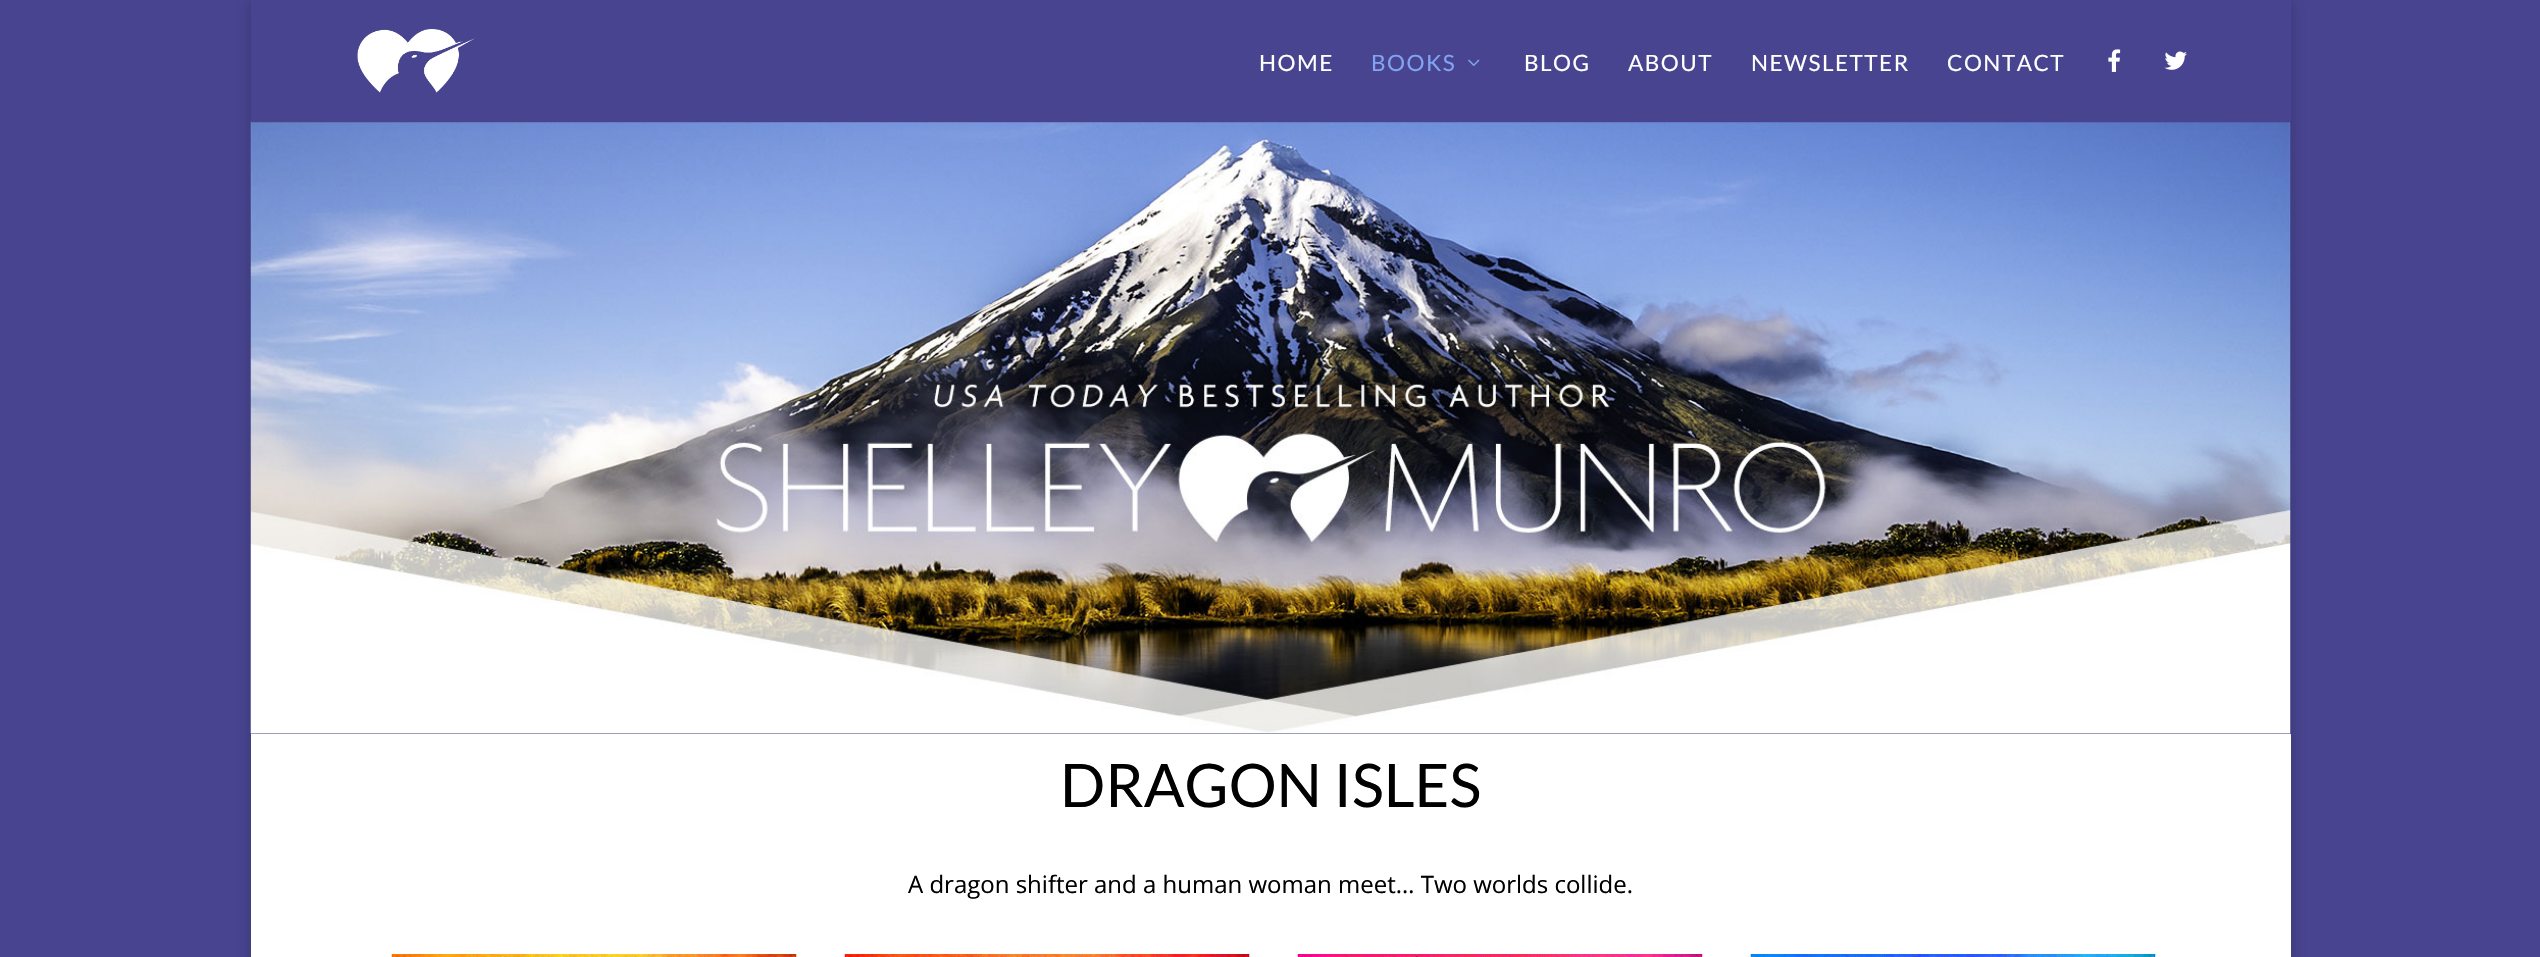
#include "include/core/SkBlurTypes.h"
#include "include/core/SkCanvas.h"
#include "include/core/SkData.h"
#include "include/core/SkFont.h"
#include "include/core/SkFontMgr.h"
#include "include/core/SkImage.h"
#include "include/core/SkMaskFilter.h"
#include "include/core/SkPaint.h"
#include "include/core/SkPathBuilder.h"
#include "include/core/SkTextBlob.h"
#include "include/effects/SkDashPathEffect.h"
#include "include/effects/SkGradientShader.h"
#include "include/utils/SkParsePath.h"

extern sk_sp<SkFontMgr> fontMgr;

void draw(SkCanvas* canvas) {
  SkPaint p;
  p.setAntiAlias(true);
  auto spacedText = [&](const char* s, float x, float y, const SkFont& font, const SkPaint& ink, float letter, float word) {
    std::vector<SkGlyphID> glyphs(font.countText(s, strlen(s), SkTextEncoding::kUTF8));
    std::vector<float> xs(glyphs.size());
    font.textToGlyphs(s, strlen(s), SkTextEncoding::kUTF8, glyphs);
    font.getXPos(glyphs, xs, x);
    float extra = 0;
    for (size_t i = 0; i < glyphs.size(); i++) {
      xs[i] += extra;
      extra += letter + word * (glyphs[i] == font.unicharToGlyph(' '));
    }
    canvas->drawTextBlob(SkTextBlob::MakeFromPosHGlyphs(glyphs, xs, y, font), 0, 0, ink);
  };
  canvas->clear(SkColorSetRGB(72, 68, 144));
  p.setColor(SkColorSetARGB(51, 0, 0, 0));
  p.setMaskFilter(SkMaskFilter::MakeBlur(kNormal_SkBlurStyle, 7.5f));
  canvas->drawRect(SkRect::MakeLTRB(251, 0, 2291, 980), p);
  p.setMaskFilter(nullptr);
  canvas->drawImageRect(SkImages::DeferredFromEncodedData(SkData::MakeFromFileName("images/5.png")), SkRect::MakeLTRB(250, 121, 2291, 734), SkSamplingOptions());
  p.setColor(SkColorSetARGB(26, 0, 0, 0));
  canvas->drawPath(SkPathBuilder().moveTo(251, 122).lineTo(251, 123).lineTo(2291, 123).lineTo(2291, 2).lineTo(2290, 2).lineTo(2290, 122).close().detach(), p);
  p.setColor(SkColorSetRGB(72, 68, 144));
  canvas->drawRect(SkRect::MakeLTRB(251, 0, 2291, 122), p);
  canvas->drawImageRect(SkImages::DeferredFromEncodedData(SkData::MakeFromFileName("images/1.png")), SkRect::MakeLTRB(357, 29, 475, 93), SkSamplingOptions());
  canvas->drawImageRect(SkImages::DeferredFromEncodedData(SkData::MakeFromFileName("images/2.png")), SkRect::MakeLTRB(1468, 59, 1480, 66), SkSamplingOptions());
  canvas->drawImageRect(SkImages::DeferredFromEncodedData(SkData::MakeFromFileName("images/3.png")), SkRect::MakeLTRB(2108, 49, 2121, 72), SkSamplingOptions());
  canvas->drawImageRect(SkImages::DeferredFromEncodedData(SkData::MakeFromFileName("images/4.png")), SkRect::MakeLTRB(2164, 51, 2187, 70), SkSamplingOptions());
  p.setColor(SK_ColorWHITE);
  canvas->drawRect(SkRect::MakeLTRB(251, 734, 2291, 957), p);
  canvas->drawImageRect(SkImages::DeferredFromEncodedData(SkData::MakeFromFileName("images/6.png")), SkRect::MakeLTRB(391, 954, 797, 957), SkSamplingOptions());
  canvas->drawImageRect(SkImages::DeferredFromEncodedData(SkData::MakeFromFileName("images/7.png")), SkRect::MakeLTRB(844, 954, 1250, 957), SkSamplingOptions());
  canvas->drawImageRect(SkImages::DeferredFromEncodedData(SkData::MakeFromFileName("images/8.png")), SkRect::MakeLTRB(1297, 954, 1703, 957), SkSamplingOptions());
  canvas->drawImageRect(SkImages::DeferredFromEncodedData(SkData::MakeFromFileName("images/9.png")), SkRect::MakeLTRB(1750, 954, 2156, 957), SkSamplingOptions());
  SkFont font1(fontMgr->matchFamilyStyle("Lato", SkFontStyle::Normal()), 22.5f);
  font1.setSubpixel(true);
  spacedText("HOME", 1259, 71, font1, p, 1.5f, 0);
  p.setColor(SkColorSetRGB(130, 163, 241));
  spacedText("BOOKS", 1371, 71, font1, p, 1.5f, 0);
  p.setColor(SK_ColorWHITE);
  spacedText("BLOG", 1524, 71, font1, p, 1.5f, 0);
  spacedText("ABOUT", 1628, 71, font1, p, 1.5f, 0);
  spacedText("NEWSLETTER", 1751, 71, font1, p, 1.5f, 0);
  spacedText("CONTACT", 1947, 71, font1, p, 1.5f, 0);
  SkFont font2(fontMgr->matchFamilyStyle("Lato", SkFontStyle::Normal()), 60);
  font2.setSubpixel(true);
  p.setColor(SK_ColorBLACK);
  canvas->drawString("DRAGON ISLES", 1060, 807, font2, p);
  SkFont font3(fontMgr->matchFamilyStyle("Open Sans", SkFontStyle::Normal()), 24);
  font3.setSubpixel(true);
  canvas->drawString("A dragon shifter and a human woman meet… Two worlds collide.", 908, 893, font3, p);
}
